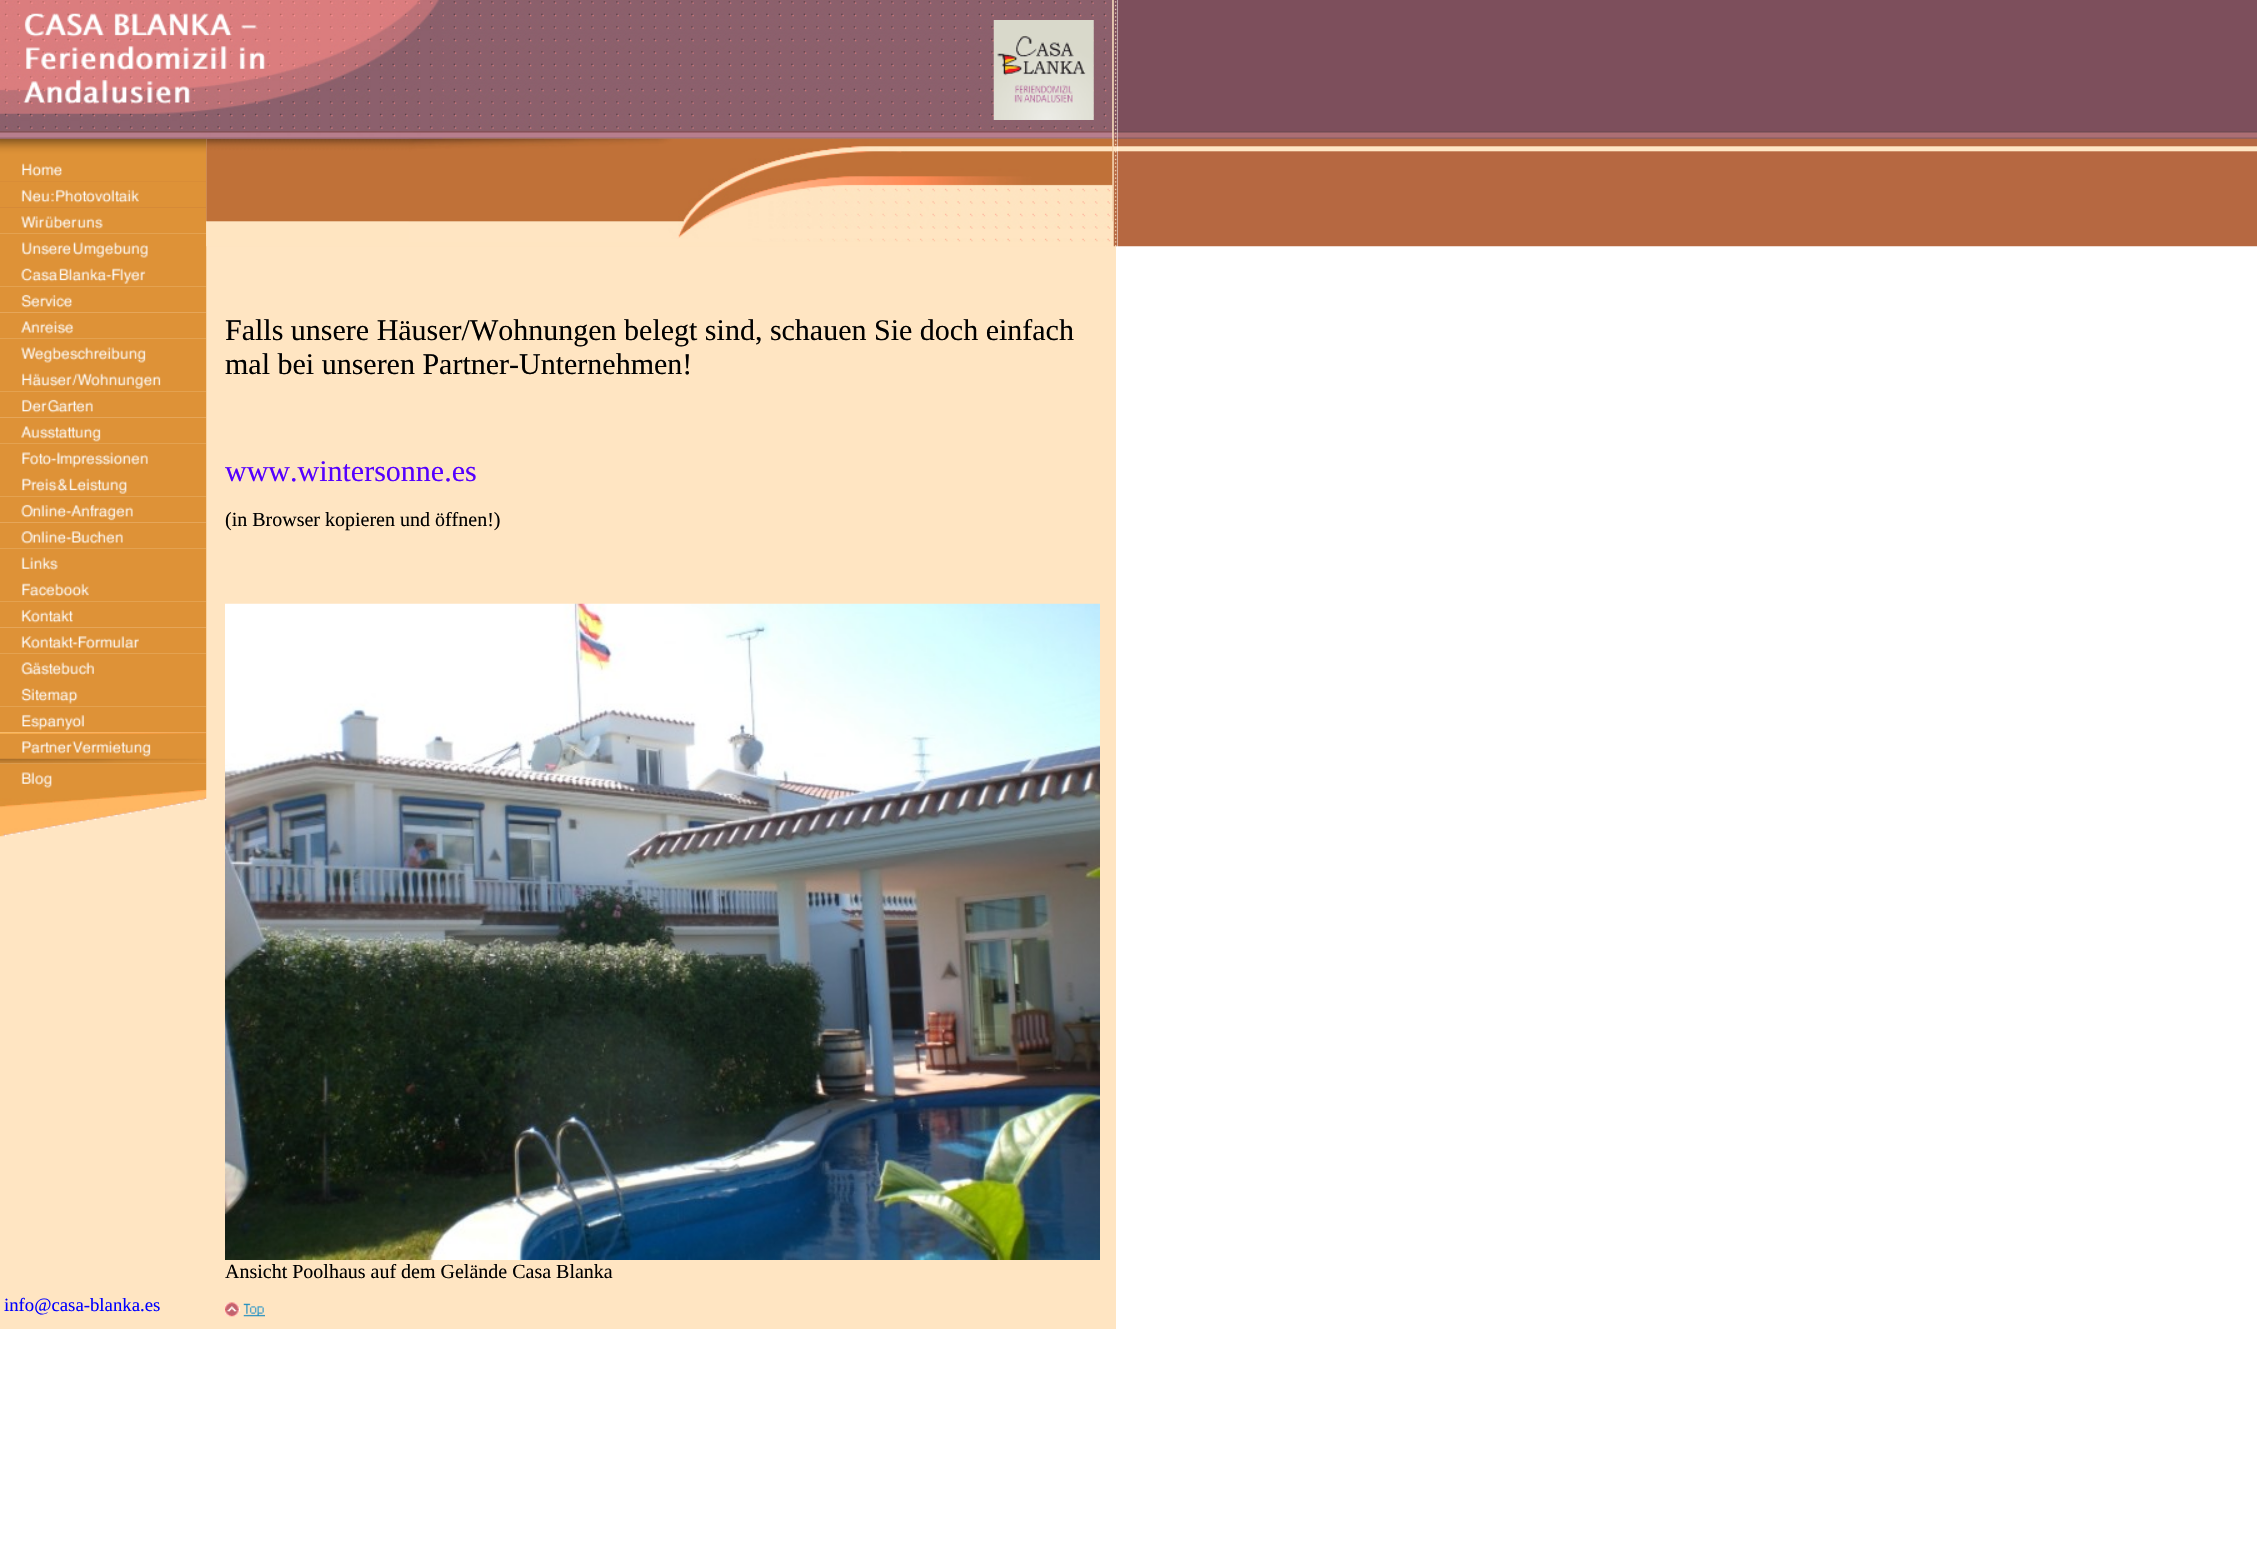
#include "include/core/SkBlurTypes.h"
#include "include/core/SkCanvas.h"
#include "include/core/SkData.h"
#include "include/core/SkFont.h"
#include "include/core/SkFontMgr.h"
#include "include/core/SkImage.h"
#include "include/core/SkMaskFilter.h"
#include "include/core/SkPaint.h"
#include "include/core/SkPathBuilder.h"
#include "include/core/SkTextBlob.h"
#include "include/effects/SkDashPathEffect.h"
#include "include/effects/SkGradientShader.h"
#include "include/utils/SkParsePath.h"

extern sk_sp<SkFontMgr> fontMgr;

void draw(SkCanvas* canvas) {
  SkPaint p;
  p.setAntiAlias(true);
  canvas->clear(SK_ColorWHITE);
  canvas->drawImageRect(SkImages::DeferredFromEncodedData(SkData::MakeFromFileName("images/1.png")), SkRect::MakeLTRB(1118, 0, 2257, 247), SkSamplingOptions());
  canvas->drawImageRect(SkImages::DeferredFromEncodedData(SkData::MakeFromFileName("images/2.png")), SkRect::MakeLTRB(1116, 0, 1118, 247), SkSamplingOptions());
  p.setColor(SkColorSetRGB(255, 229, 194));
  canvas->drawRect(SkRect::MakeLTRB(0, 0, 1116, 1329), p);
  canvas->drawImageRect(SkImages::DeferredFromEncodedData(SkData::MakeFromFileName("images/3.png")), SkRect::MakeLTRB(0, 138, 207, 139), SkSamplingOptions());
  canvas->drawImageRect(SkImages::DeferredFromEncodedData(SkData::MakeFromFileName("images/5.png")), SkRect::MakeLTRB(206, 0, 1113, 139), SkSamplingOptions());
  canvas->drawImageRect(SkImages::DeferredFromEncodedData(SkData::MakeFromFileName("images/8.png")), SkRect::MakeLTRB(0, 138, 207, 208), SkSamplingOptions());
  canvas->drawRect(SkRect::MakeLTRB(206, 139, 207, 208), p);
  canvas->drawImageRect(SkImages::DeferredFromEncodedData(SkData::MakeFromFileName("images/9.png")), SkRect::MakeLTRB(0, 138, 207, 155), SkSamplingOptions());
  canvas->drawImageRect(SkImages::DeferredFromEncodedData(SkData::MakeFromFileName("images/10.png")), SkRect::MakeLTRB(0, 155, 207, 182), SkSamplingOptions());
  canvas->drawImageRect(SkImages::DeferredFromEncodedData(SkData::MakeFromFileName("images/11.png")), SkRect::MakeLTRB(0, 181, 207, 208), SkSamplingOptions());
  canvas->drawImageRect(SkImages::DeferredFromEncodedData(SkData::MakeFromFileName("images/12.png")), SkRect::MakeLTRB(0, 207, 207, 234), SkSamplingOptions());
  canvas->drawImageRect(SkImages::DeferredFromEncodedData(SkData::MakeFromFileName("images/13.png")), SkRect::MakeLTRB(0, 233, 207, 260), SkSamplingOptions());
  canvas->drawImageRect(SkImages::DeferredFromEncodedData(SkData::MakeFromFileName("images/35.png")), SkRect::MakeLTRB(206, 138, 1113, 247), SkSamplingOptions());
  canvas->drawImageRect(SkImages::DeferredFromEncodedData(SkData::MakeFromFileName("images/36.png")), SkRect::MakeLTRB(408, 138, 1113, 242), SkSamplingOptions());
  canvas->drawImageRect(SkImages::DeferredFromEncodedData(SkData::MakeFromFileName("images/4.png")), SkRect::MakeLTRB(0, 0, 443, 139), SkSamplingOptions());
  canvas->drawImageRect(SkImages::DeferredFromEncodedData(SkData::MakeFromFileName("images/6.png")), SkRect::MakeLTRB(993, 20, 1094, 120), SkSamplingOptions());
  canvas->drawImageRect(SkImages::DeferredFromEncodedData(SkData::MakeFromFileName("images/7.png")), SkRect::MakeLTRB(1112, 0, 1117, 247), SkSamplingOptions());
  canvas->drawImageRect(SkImages::DeferredFromEncodedData(SkData::MakeFromFileName("images/14.png")), SkRect::MakeLTRB(0, 260, 207, 287), SkSamplingOptions());
  canvas->drawImageRect(SkImages::DeferredFromEncodedData(SkData::MakeFromFileName("images/15.png")), SkRect::MakeLTRB(0, 286, 207, 313), SkSamplingOptions());
  canvas->drawImageRect(SkImages::DeferredFromEncodedData(SkData::MakeFromFileName("images/16.png")), SkRect::MakeLTRB(0, 312, 207, 339), SkSamplingOptions());
  canvas->drawImageRect(SkImages::DeferredFromEncodedData(SkData::MakeFromFileName("images/17.png")), SkRect::MakeLTRB(0, 338, 207, 365), SkSamplingOptions());
  canvas->drawImageRect(SkImages::DeferredFromEncodedData(SkData::MakeFromFileName("images/18.png")), SkRect::MakeLTRB(0, 365, 207, 392), SkSamplingOptions());
  canvas->drawImageRect(SkImages::DeferredFromEncodedData(SkData::MakeFromFileName("images/19.png")), SkRect::MakeLTRB(0, 391, 207, 418), SkSamplingOptions());
  canvas->drawImageRect(SkImages::DeferredFromEncodedData(SkData::MakeFromFileName("images/20.png")), SkRect::MakeLTRB(0, 417, 207, 444), SkSamplingOptions());
  canvas->drawImageRect(SkImages::DeferredFromEncodedData(SkData::MakeFromFileName("images/21.png")), SkRect::MakeLTRB(0, 443, 207, 470), SkSamplingOptions());
  canvas->drawImageRect(SkImages::DeferredFromEncodedData(SkData::MakeFromFileName("images/22.png")), SkRect::MakeLTRB(0, 470, 207, 497), SkSamplingOptions());
  canvas->drawImageRect(SkImages::DeferredFromEncodedData(SkData::MakeFromFileName("images/23.png")), SkRect::MakeLTRB(0, 496, 207, 523), SkSamplingOptions());
  canvas->drawImageRect(SkImages::DeferredFromEncodedData(SkData::MakeFromFileName("images/24.png")), SkRect::MakeLTRB(0, 522, 207, 549), SkSamplingOptions());
  canvas->drawImageRect(SkImages::DeferredFromEncodedData(SkData::MakeFromFileName("images/25.png")), SkRect::MakeLTRB(0, 548, 207, 575), SkSamplingOptions());
  canvas->drawImageRect(SkImages::DeferredFromEncodedData(SkData::MakeFromFileName("images/26.png")), SkRect::MakeLTRB(0, 575, 207, 602), SkSamplingOptions());
  canvas->drawImageRect(SkImages::DeferredFromEncodedData(SkData::MakeFromFileName("images/27.png")), SkRect::MakeLTRB(0, 601, 207, 628), SkSamplingOptions());
  canvas->drawImageRect(SkImages::DeferredFromEncodedData(SkData::MakeFromFileName("images/28.png")), SkRect::MakeLTRB(0, 627, 207, 654), SkSamplingOptions());
  canvas->drawImageRect(SkImages::DeferredFromEncodedData(SkData::MakeFromFileName("images/29.png")), SkRect::MakeLTRB(0, 653, 207, 680), SkSamplingOptions());
  canvas->drawImageRect(SkImages::DeferredFromEncodedData(SkData::MakeFromFileName("images/30.png")), SkRect::MakeLTRB(0, 680, 207, 707), SkSamplingOptions());
  canvas->drawImageRect(SkImages::DeferredFromEncodedData(SkData::MakeFromFileName("images/31.png")), SkRect::MakeLTRB(0, 706, 207, 733), SkSamplingOptions());
  canvas->drawImageRect(SkImages::DeferredFromEncodedData(SkData::MakeFromFileName("images/32.png")), SkRect::MakeLTRB(0, 732, 207, 764), SkSamplingOptions());
  canvas->drawImageRect(SkImages::DeferredFromEncodedData(SkData::MakeFromFileName("images/33.png")), SkRect::MakeLTRB(0, 763, 207, 790), SkSamplingOptions());
  canvas->drawImageRect(SkImages::DeferredFromEncodedData(SkData::MakeFromFileName("images/34.png")), SkRect::MakeLTRB(0, 790, 207, 837), SkSamplingOptions());
  canvas->drawImageRect(SkImages::DeferredFromEncodedData(SkData::MakeFromFileName("images/37.png")), SkRect::MakeLTRB(225, 603, 1100, 1260), SkSamplingOptions());
  canvas->drawImageRect(SkImages::DeferredFromEncodedData(SkData::MakeFromFileName("images/38.png")), SkRect::MakeLTRB(225, 1302, 265, 1317), SkSamplingOptions());
  SkFont font1(fontMgr->matchFamilyStyle("Liberation Serif", SkFontStyle::Normal()), 30);
  font1.setSubpixel(true);
  p.setColor(SK_ColorBLACK);
  canvas->drawString("Falls unsere Häuser/Wohnungen belegt sind, schauen Sie doch einfach", 225, 340, font1, p);
  canvas->drawString("mal bei unseren Partner-Unternehmen!", 225, 374, font1, p);
  p.setColor(SkColorSetRGB(85, 0, 255));
  canvas->drawString("www.wintersonne.es", 225, 481, font1, p);
  SkFont font2(fontMgr->matchFamilyStyle("Liberation Serif", SkFontStyle::Normal()), 20);
  font2.setSubpixel(true);
  p.setColor(SK_ColorBLACK);
  canvas->drawString("(in Browser kopieren und öffnen!)", 225, 526, font2, p);
  canvas->drawString("Ansicht Poolhaus auf dem Gelände Casa Blanka", 225, 1278, font2, p);
  SkFont font3(fontMgr->matchFamilyStyle("Liberation Serif", SkFontStyle::Normal()), 18.75f);
  font3.setSubpixel(true);
  p.setColor(SkColorSetRGB(0, 0, 255));
  canvas->drawString("info@casa-blanka.es", 4, 1311, font3, p);
}
